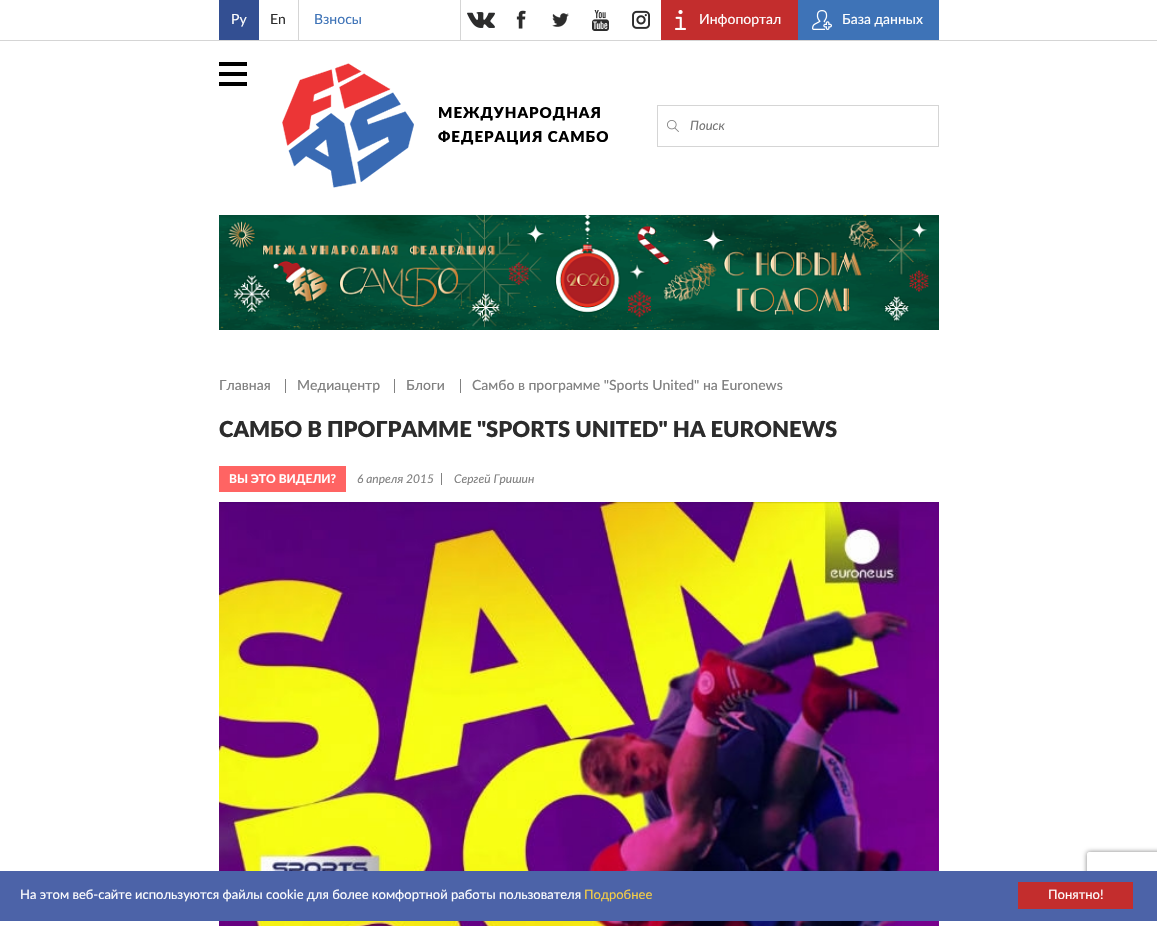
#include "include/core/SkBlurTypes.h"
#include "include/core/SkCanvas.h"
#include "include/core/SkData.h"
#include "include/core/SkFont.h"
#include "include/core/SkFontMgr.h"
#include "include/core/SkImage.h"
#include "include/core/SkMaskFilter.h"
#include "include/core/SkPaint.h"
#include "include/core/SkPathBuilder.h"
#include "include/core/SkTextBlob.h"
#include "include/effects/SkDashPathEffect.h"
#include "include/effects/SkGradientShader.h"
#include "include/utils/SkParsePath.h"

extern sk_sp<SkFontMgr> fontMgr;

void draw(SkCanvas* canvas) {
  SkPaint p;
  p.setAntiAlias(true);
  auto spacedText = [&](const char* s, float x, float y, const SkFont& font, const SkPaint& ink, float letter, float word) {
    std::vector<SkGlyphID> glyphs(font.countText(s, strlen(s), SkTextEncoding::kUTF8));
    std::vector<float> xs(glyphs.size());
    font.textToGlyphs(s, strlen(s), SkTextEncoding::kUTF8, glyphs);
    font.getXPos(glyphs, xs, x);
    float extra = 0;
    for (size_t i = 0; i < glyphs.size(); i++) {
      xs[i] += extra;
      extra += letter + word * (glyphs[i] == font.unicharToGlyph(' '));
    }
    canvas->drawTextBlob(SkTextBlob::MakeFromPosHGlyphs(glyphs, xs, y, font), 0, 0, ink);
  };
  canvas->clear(SK_ColorWHITE);
  p.setColor(SkColorSetRGB(213, 213, 213));
  canvas->drawRect(SkRect::MakeLTRB(0, 40, 1157, 41), p);
  p.setColor(SkColorSetRGB(51, 79, 146));
  canvas->drawRect(SkRect::MakeLTRB(219, 0, 259, 40), p);
  p.setColor(SkColorSetRGB(213, 213, 213));
  canvas->drawRect(SkRect::MakeLTRB(298, 0, 299, 40), p);
  canvas->drawRect(SkRect::MakeLTRB(460, 0, 461, 40), p);
  canvas->drawImageRect(SkImages::DeferredFromEncodedData(SkData::MakeFromFileName("images/1.png")), SkRect::MakeLTRB(467, 12, 495, 28), SkSamplingOptions());
  canvas->drawImageRect(SkImages::DeferredFromEncodedData(SkData::MakeFromFileName("images/2.png")), SkRect::MakeLTRB(516, 10, 526, 29), SkSamplingOptions());
  canvas->drawImageRect(SkImages::DeferredFromEncodedData(SkData::MakeFromFileName("images/3.png")), SkRect::MakeLTRB(552, 13, 569, 27), SkSamplingOptions());
  canvas->drawImageRect(SkImages::DeferredFromEncodedData(SkData::MakeFromFileName("images/4.png")), SkRect::MakeLTRB(592, 10, 609, 31), SkSamplingOptions());
  canvas->drawImageRect(SkImages::DeferredFromEncodedData(SkData::MakeFromFileName("images/5.png")), SkRect::MakeLTRB(632, 10, 650, 29), SkSamplingOptions());
  p.setColor(SkColorSetRGB(195, 45, 45));
  canvas->drawRect(SkRect::MakeLTRB(661, 0, 798, 40), p);
  canvas->drawImageRect(SkImages::DeferredFromEncodedData(SkData::MakeFromFileName("images/6.png")), SkRect::MakeLTRB(675, 10, 686, 30), SkSamplingOptions());
  p.setColor(SkColorSetRGB(62, 115, 183));
  canvas->drawRect(SkRect::MakeLTRB(798, 0, 939, 40), p);
  canvas->drawImageRect(SkImages::DeferredFromEncodedData(SkData::MakeFromFileName("images/7.png")), SkRect::MakeLTRB(812, 10, 832, 30), SkSamplingOptions());
  p.setStyle(SkPaint::kStroke_Style);
  p.setStrokeWidth(1);
  p.setColor(SkColorSetRGB(213, 213, 213));
  canvas->drawRect(SkRect::MakeLTRB(657.5f, 105.5f, 938.5f, 146.5f), p);
  canvas->drawImageRect(SkImages::DeferredFromEncodedData(SkData::MakeFromFileName("images/8.png")), SkRect::MakeLTRB(667, 120, 679, 132), SkSamplingOptions());
  p.setStyle(SkPaint::kFill_Style);
  p.setColor(SK_ColorBLACK);
  canvas->drawRect(SkRect::MakeLTRB(219, 62, 247, 66), p);
  canvas->drawRect(SkRect::MakeLTRB(219, 82, 247, 86), p);
  canvas->drawRect(SkRect::MakeLTRB(219, 72, 247, 76), p);
  canvas->drawImageRect(SkImages::DeferredFromEncodedData(SkData::MakeFromFileName("images/9.png")), SkRect::MakeLTRB(282, 63, 414, 188), SkSamplingOptions());
  canvas->drawImageRect(SkImages::DeferredFromEncodedData(SkData::MakeFromFileName("images/10.png")), SkRect::MakeLTRB(219, 215, 939, 330), SkSamplingOptions());
  p.setColor(SkColorSetRGB(129, 129, 129));
  canvas->drawRect(SkRect::MakeLTRB(285, 379, 286, 393), p);
  canvas->drawRect(SkRect::MakeLTRB(394, 379, 395, 393), p);
  canvas->drawRect(SkRect::MakeLTRB(460, 379, 461, 393), p);
  p.setColor(SkColorSetRGB(255, 100, 99));
  canvas->drawRect(SkRect::MakeLTRB(219, 466, 346, 492), p);
  p.setColor(SkColorSetRGB(129, 129, 129));
  canvas->drawRect(SkRect::MakeLTRB(441, 473, 442, 485), p);
  canvas->drawImageRect(SkImages::DeferredFromEncodedData(SkData::MakeFromFileName("images/11.png")), SkRect::MakeLTRB(219, 502, 939, 926), SkSamplingOptions());
  canvas->save();
  canvas->clipPath(SkPathBuilder(SkPathFillType::kEvenOdd).moveTo(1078, 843).lineTo(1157, 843).lineTo(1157, 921).lineTo(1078, 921).close().moveTo(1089, 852).lineTo(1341, 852).cubicTo(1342, 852, 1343, 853, 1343, 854).lineTo(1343, 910).cubicTo(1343, 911, 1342, 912, 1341, 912).lineTo(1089, 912).cubicTo(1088, 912, 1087, 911, 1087, 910).lineTo(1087, 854).cubicTo(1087, 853, 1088, 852, 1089, 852).close().detach(), true);
  p.setColor(SkColorSetRGB(128, 128, 128));
  p.setMaskFilter(SkMaskFilter::MakeBlur(kNormal_SkBlurStyle, 2.5f));
  canvas->drawRoundRect(SkRect::MakeLTRB(1087, 852, 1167, 912), 2, 2, p);
  p.setMaskFilter(nullptr);
  canvas->restore();
  p.setColor(SkColorSetRGB(76, 99, 168));
  canvas->drawRect(SkRect::MakeLTRB(0, 871, 1157, 921), p);
  p.setColor(SkColorSetRGB(195, 45, 45));
  canvas->drawRect(SkRect::MakeLTRB(1018, 882, 1133, 909), p);
  SkFont font1(fontMgr->matchFamilyStyle("Lato", SkFontStyle::Normal()), 14);
  font1.setSubpixel(true);
  p.setColor(SK_ColorWHITE);
  canvas->drawString("Ру", 231, 24, font1, p);
  p.setColor(SkColorSetRGB(44, 44, 44));
  canvas->drawString("En", 270, 24, font1, p);
  p.setColor(SkColorSetRGB(62, 115, 183));
  canvas->drawString("Взносы", 314, 24, font1, p);
  p.setColor(SK_ColorWHITE);
  canvas->drawString("Инфопортал", 699, 24, font1, p);
  canvas->drawString("База данных", 842, 24, font1, p);
  SkFont font2(fontMgr->matchFamilyStyle("Lato", SkFontStyle::Italic()), 13);
  font2.setSubpixel(true);
  p.setColor(SkColorSetRGB(117, 117, 117));
  canvas->drawString("Поиск", 690, 130, font2, p);
  SkFont font3(fontMgr->matchFamilyStyle("Lato", SkFontStyle(900, SkFontStyle::kNormal_Width, SkFontStyle::kUpright_Slant)), 15);
  font3.setSubpixel(true);
  p.setColor(SK_ColorBLACK);
  spacedText("МЕЖДУНАРОДНАЯ", 438, 118, font3, p, 1, 0);
  spacedText("ФЕДЕРАЦИЯ САМБО", 438, 142, font3, p, 1, 0);
  SkFont font4(fontMgr->matchFamilyStyle("Lato", SkFontStyle(500, SkFontStyle::kNormal_Width, SkFontStyle::kUpright_Slant)), 14);
  font4.setSubpixel(true);
  p.setColor(SkColorSetRGB(129, 129, 129));
  canvas->drawString("Главная", 219, 390, font4, p);
  canvas->drawString("Медиацентр", 297, 390, font4, p);
  canvas->drawString("Блоги", 406, 390, font4, p);
  canvas->drawString("Самбо в программе \"Sports United\" на Euronews", 472, 390, font4, p);
  SkFont font5(fontMgr->matchFamilyStyle("Lato", SkFontStyle(900, SkFontStyle::kNormal_Width, SkFontStyle::kUpright_Slant)), 22);
  font5.setSubpixel(true);
  p.setColor(SkColorSetRGB(44, 44, 44));
  canvas->drawString("САМБО В ПРОГРАММЕ \"SPORTS UNITED\" НА EURONEWS", 219, 437, font5, p);
  SkFont font6(fontMgr->matchFamilyStyle("Lato", SkFontStyle::Bold()), 12);
  font6.setSubpixel(true);
  p.setColor(SK_ColorWHITE);
  canvas->drawString("ВЫ ЭТО ВИДЕЛИ?", 229, 483, font6, p);
  SkFont font7(fontMgr->matchFamilyStyle("Lato", SkFontStyle::Italic()), 12);
  font7.setSubpixel(true);
  p.setColor(SkColorSetRGB(129, 129, 129));
  canvas->drawString("6 апреля 2015", 357, 483, font7, p);
  canvas->drawString("Сергей Гришин", 454, 483, font7, p);
  SkFont font8(fontMgr->matchFamilyStyle("Lato", SkFontStyle::Normal()), 13);
  font8.setSubpixel(true);
  p.setColor(SK_ColorWHITE);
  canvas->drawString("На этом веб-сайте используются файлы cookie для более комфортной работы пользователя", 20, 899, font8, p);
  p.setColor(SkColorSetRGB(244, 205, 71));
  canvas->drawString("Подробнее", 584, 899, font8, p);
  p.setColor(SK_ColorWHITE);
  canvas->drawString("Понятно!", 1048, 899, font8, p);
}
